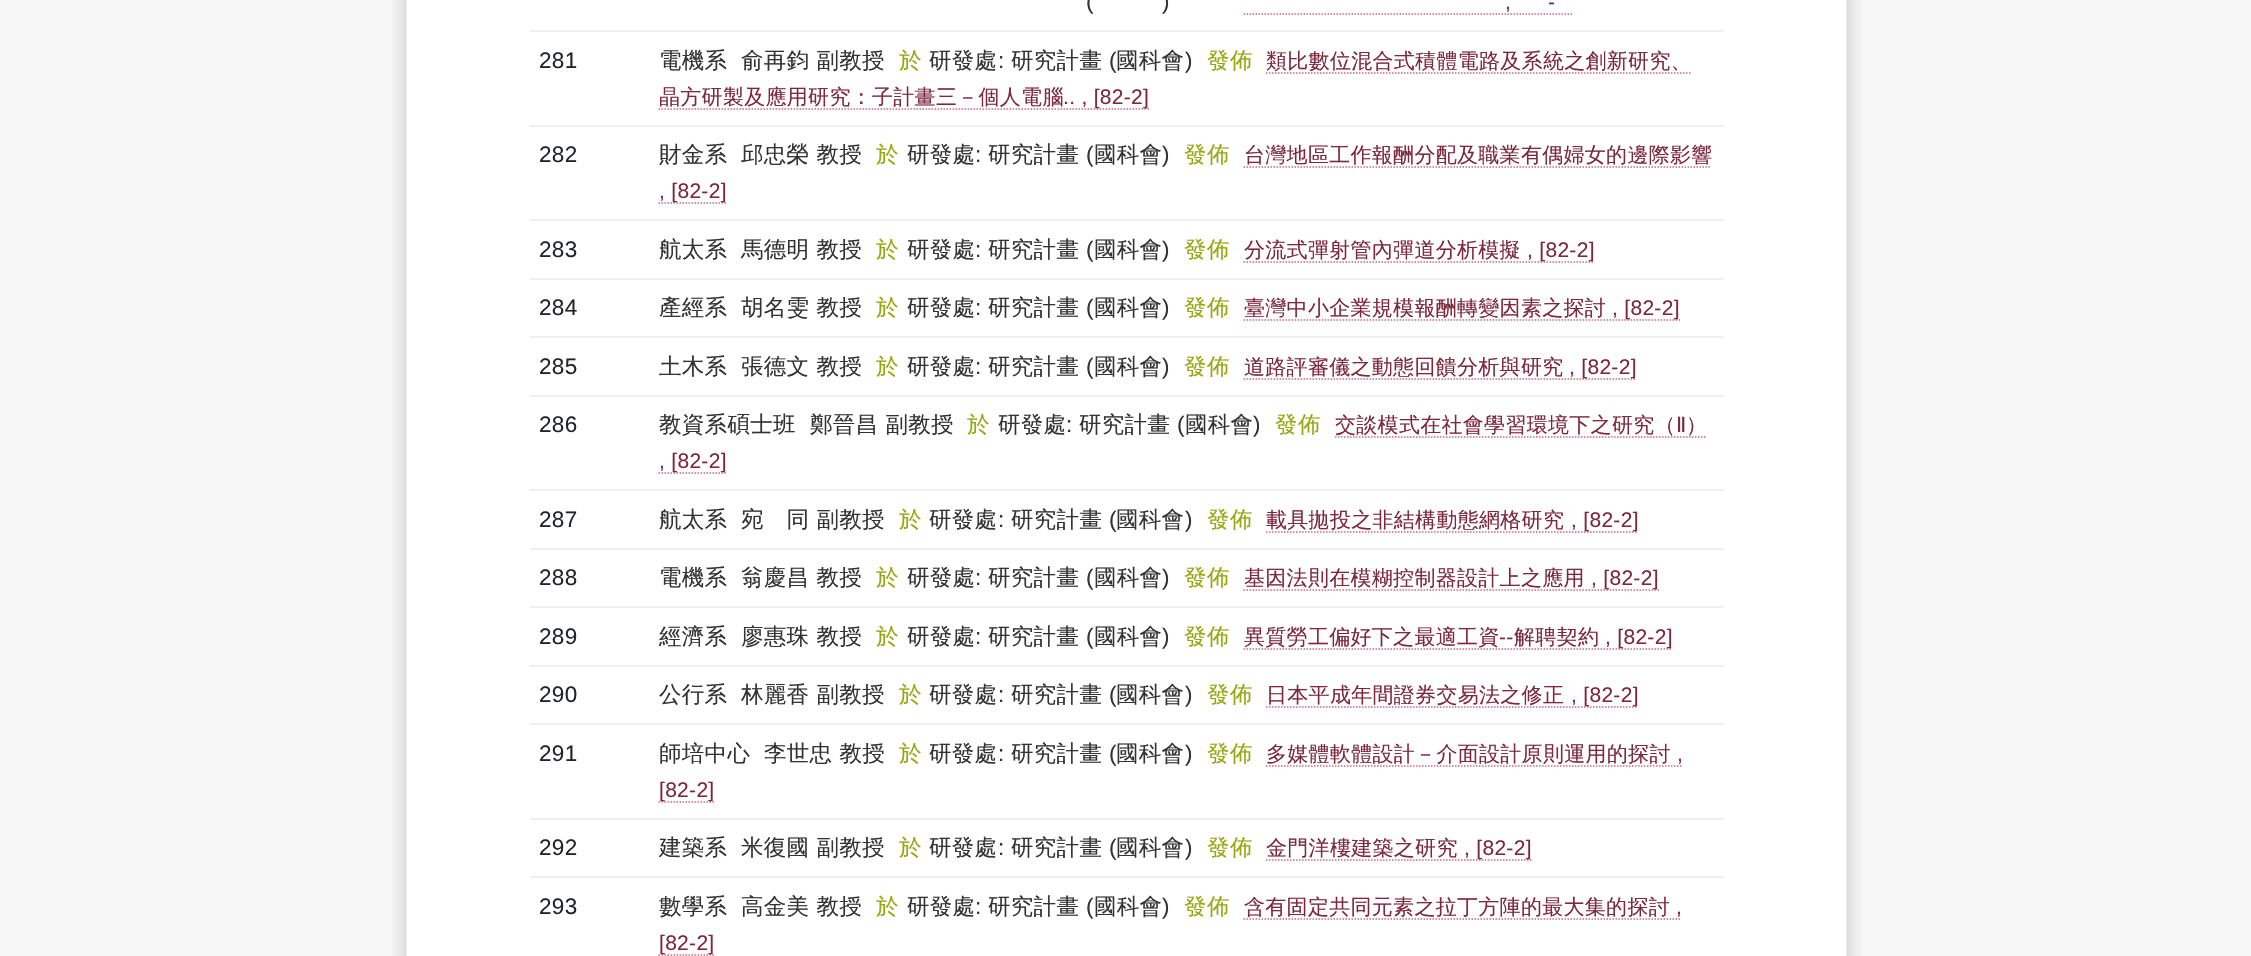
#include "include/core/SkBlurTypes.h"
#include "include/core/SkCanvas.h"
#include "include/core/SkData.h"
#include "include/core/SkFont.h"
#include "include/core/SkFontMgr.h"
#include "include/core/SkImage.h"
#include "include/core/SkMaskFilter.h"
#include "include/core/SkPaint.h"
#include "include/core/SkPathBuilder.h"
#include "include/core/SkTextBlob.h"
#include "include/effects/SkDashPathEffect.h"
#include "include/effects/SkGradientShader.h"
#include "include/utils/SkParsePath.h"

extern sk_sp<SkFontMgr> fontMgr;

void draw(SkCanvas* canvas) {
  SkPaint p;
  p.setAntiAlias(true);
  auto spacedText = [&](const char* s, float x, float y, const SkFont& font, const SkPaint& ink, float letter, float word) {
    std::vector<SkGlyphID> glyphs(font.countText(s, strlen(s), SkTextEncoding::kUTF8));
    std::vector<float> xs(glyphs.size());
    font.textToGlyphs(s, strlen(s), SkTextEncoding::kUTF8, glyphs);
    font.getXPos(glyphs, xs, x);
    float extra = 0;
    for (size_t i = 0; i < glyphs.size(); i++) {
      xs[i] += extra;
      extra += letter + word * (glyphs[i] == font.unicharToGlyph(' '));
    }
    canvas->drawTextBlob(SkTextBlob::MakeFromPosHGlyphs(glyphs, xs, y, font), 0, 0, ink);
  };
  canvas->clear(SkColorSetRGB(246, 246, 246));
  canvas->drawImageRect(SkImages::DeferredFromEncodedData(SkData::MakeFromFileName("images/1.png")), SkRect::MakeLTRB(392, 0, 1861, 956), SkSamplingOptions());
  p.setColor(SkColorSetRGB(239, 239, 239));
  canvas->drawRect(SkRect::MakeLTRB(530, 30, 1724, 32), p);
  p.setStyle(SkPaint::kStroke_Style);
  p.setStrokeWidth(1.5f);
  p.setColor(SkColorSetRGB(199, 108, 130));
  p.setPathEffect(SkDashPathEffect::Make({{1.5f, 1.5f}}, 0));
  canvas->drawPath(SkPathBuilder().moveTo(1243.5f, 14).lineTo(1573.5f, 14).detach(), p);
  p.setPathEffect(nullptr);
  p.setStyle(SkPaint::kFill_Style);
  p.setColor(SkColorSetRGB(239, 239, 239));
  canvas->drawRect(SkRect::MakeLTRB(530, 125, 1724, 127), p);
  p.setStyle(SkPaint::kStroke_Style);
  p.setColor(SkColorSetRGB(199, 108, 130));
  p.setPathEffect(SkDashPathEffect::Make({{1.5f, 1.5f}}, 0));
  canvas->drawPath(SkPathBuilder().moveTo(1266, 73).lineTo(1692, 73).detach(), p);
  p.setPathEffect(nullptr);
  p.setPathEffect(SkDashPathEffect::Make({{1.5f, 1.5f}}, 0));
  canvas->drawPath(SkPathBuilder().moveTo(658.5f, 109).lineTo(1149, 109).detach(), p);
  p.setPathEffect(nullptr);
  p.setStyle(SkPaint::kFill_Style);
  p.setColor(SkColorSetRGB(239, 239, 239));
  canvas->drawRect(SkRect::MakeLTRB(530, 219, 1724, 221), p);
  p.setStyle(SkPaint::kStroke_Style);
  p.setColor(SkColorSetRGB(199, 108, 130));
  p.setPathEffect(SkDashPathEffect::Make({{1.5f, 1.5f}}, 0));
  canvas->drawPath(SkPathBuilder().moveTo(1243.5f, 167).lineTo(1711.5f, 167).detach(), p);
  p.setPathEffect(nullptr);
  p.setPathEffect(SkDashPathEffect::Make({{1.5f, 1.5f}}, 0));
  canvas->drawPath(SkPathBuilder().moveTo(658.5f, 203).lineTo(726, 203).detach(), p);
  p.setPathEffect(nullptr);
  p.setStyle(SkPaint::kFill_Style);
  p.setColor(SkColorSetRGB(239, 239, 239));
  canvas->drawRect(SkRect::MakeLTRB(530, 278, 1724, 280), p);
  p.setStyle(SkPaint::kStroke_Style);
  p.setColor(SkColorSetRGB(199, 108, 130));
  p.setPathEffect(SkDashPathEffect::Make({{1.5f, 1.5f}}, 0));
  canvas->drawPath(SkPathBuilder().moveTo(1243.5f, 262).lineTo(1594.5f, 262).detach(), p);
  p.setPathEffect(nullptr);
  p.setStyle(SkPaint::kFill_Style);
  p.setColor(SkColorSetRGB(239, 239, 239));
  canvas->drawRect(SkRect::MakeLTRB(530, 336, 1724, 338), p);
  p.setStyle(SkPaint::kStroke_Style);
  p.setColor(SkColorSetRGB(199, 108, 130));
  p.setPathEffect(SkDashPathEffect::Make({{1.5f, 1.5f}}, 0));
  canvas->drawPath(SkPathBuilder().moveTo(1243.5f, 320).lineTo(1680, 320).detach(), p);
  p.setPathEffect(nullptr);
  p.setStyle(SkPaint::kFill_Style);
  p.setColor(SkColorSetRGB(239, 239, 239));
  canvas->drawRect(SkRect::MakeLTRB(530, 395, 1724, 397), p);
  p.setStyle(SkPaint::kStroke_Style);
  p.setColor(SkColorSetRGB(199, 108, 130));
  p.setPathEffect(SkDashPathEffect::Make({{1.5f, 1.5f}}, 0));
  canvas->drawPath(SkPathBuilder().moveTo(1243.5f, 379).lineTo(1636.5f, 379).detach(), p);
  p.setPathEffect(nullptr);
  p.setStyle(SkPaint::kFill_Style);
  p.setColor(SkColorSetRGB(239, 239, 239));
  canvas->drawRect(SkRect::MakeLTRB(530, 489, 1724, 491), p);
  p.setStyle(SkPaint::kStroke_Style);
  p.setColor(SkColorSetRGB(199, 108, 130));
  p.setPathEffect(SkDashPathEffect::Make({{1.5f, 1.5f}}, 0));
  canvas->drawPath(SkPathBuilder().moveTo(1335, 437).lineTo(1707, 437).detach(), p);
  p.setPathEffect(nullptr);
  p.setPathEffect(SkDashPathEffect::Make({{1.5f, 1.5f}}, 0));
  canvas->drawPath(SkPathBuilder().moveTo(658.5f, 473).lineTo(726, 473).detach(), p);
  p.setPathEffect(nullptr);
  p.setStyle(SkPaint::kFill_Style);
  p.setColor(SkColorSetRGB(239, 239, 239));
  canvas->drawRect(SkRect::MakeLTRB(530, 548, 1724, 550), p);
  p.setStyle(SkPaint::kStroke_Style);
  p.setColor(SkColorSetRGB(199, 108, 130));
  p.setPathEffect(SkDashPathEffect::Make({{1.5f, 1.5f}}, 0));
  canvas->drawPath(SkPathBuilder().moveTo(1266, 532).lineTo(1638, 532).detach(), p);
  p.setPathEffect(nullptr);
  p.setStyle(SkPaint::kFill_Style);
  p.setColor(SkColorSetRGB(239, 239, 239));
  canvas->drawRect(SkRect::MakeLTRB(530, 606, 1724, 608), p);
  p.setStyle(SkPaint::kStroke_Style);
  p.setColor(SkColorSetRGB(199, 108, 130));
  p.setPathEffect(SkDashPathEffect::Make({{1.5f, 1.5f}}, 0));
  canvas->drawPath(SkPathBuilder().moveTo(1243.5f, 590).lineTo(1659, 590).detach(), p);
  p.setPathEffect(nullptr);
  p.setStyle(SkPaint::kFill_Style);
  p.setColor(SkColorSetRGB(239, 239, 239));
  canvas->drawRect(SkRect::MakeLTRB(530, 665, 1724, 667), p);
  p.setStyle(SkPaint::kStroke_Style);
  p.setColor(SkColorSetRGB(199, 108, 130));
  p.setPathEffect(SkDashPathEffect::Make({{1.5f, 1.5f}}, 0));
  canvas->drawPath(SkPathBuilder().moveTo(1243.5f, 649).lineTo(1672.5f, 649).detach(), p);
  p.setPathEffect(nullptr);
  p.setStyle(SkPaint::kFill_Style);
  p.setColor(SkColorSetRGB(239, 239, 239));
  canvas->drawRect(SkRect::MakeLTRB(530, 723, 1724, 725), p);
  p.setStyle(SkPaint::kStroke_Style);
  p.setColor(SkColorSetRGB(199, 108, 130));
  p.setPathEffect(SkDashPathEffect::Make({{1.5f, 1.5f}}, 0));
  canvas->drawPath(SkPathBuilder().moveTo(1266, 707).lineTo(1638, 707).detach(), p);
  p.setPathEffect(nullptr);
  p.setStyle(SkPaint::kFill_Style);
  p.setColor(SkColorSetRGB(239, 239, 239));
  canvas->drawRect(SkRect::MakeLTRB(530, 818, 1724, 820), p);
  p.setStyle(SkPaint::kStroke_Style);
  p.setColor(SkColorSetRGB(199, 108, 130));
  p.setPathEffect(SkDashPathEffect::Make({{1.5f, 1.5f}}, 0));
  canvas->drawPath(SkPathBuilder().moveTo(1266, 766).lineTo(1683, 766).detach(), p);
  p.setPathEffect(nullptr);
  p.setPathEffect(SkDashPathEffect::Make({{1.5f, 1.5f}}, 0));
  canvas->drawPath(SkPathBuilder().moveTo(658.5f, 802).lineTo(714, 802).detach(), p);
  p.setPathEffect(nullptr);
  p.setStyle(SkPaint::kFill_Style);
  p.setColor(SkColorSetRGB(239, 239, 239));
  canvas->drawRect(SkRect::MakeLTRB(530, 876, 1724, 878), p);
  p.setStyle(SkPaint::kStroke_Style);
  p.setColor(SkColorSetRGB(199, 108, 130));
  p.setPathEffect(SkDashPathEffect::Make({{1.5f, 1.5f}}, 0));
  canvas->drawPath(SkPathBuilder().moveTo(1266, 860).lineTo(1531.5f, 860).detach(), p);
  p.setPathEffect(nullptr);
  p.setPathEffect(SkDashPathEffect::Make({{1.5f, 1.5f}}, 0));
  canvas->drawPath(SkPathBuilder().moveTo(1243.5f, 919).lineTo(1681.5f, 919).detach(), p);
  p.setPathEffect(nullptr);
  p.setPathEffect(SkDashPathEffect::Make({{1.5f, 1.5f}}, 0));
  canvas->drawPath(SkPathBuilder().moveTo(658.5f, 955).lineTo(714, 955).detach(), p);
  p.setPathEffect(nullptr);
  SkFont font1(fontMgr->matchFamilyStyle("Liberation Sans", SkFontStyle::Normal()), 22.5f);
  font1.setSubpixel(true);
  p.setStyle(SkPaint::kFill_Style);
  p.setColor(SkColorSetRGB(51, 51, 51));
  spacedText("(", 1086, 9, font1, p, 0.3f, 0);
  spacedText(")", 1162, 9, font1, p, 0.3f, 0);
  SkFont font2(fontMgr->matchFamilyStyle("Liberation Sans", SkFontStyle::Normal()), 21);
  font2.setSubpixel(true);
  p.setColor(SkColorSetRGB(125, 40, 61));
  spacedText("-", 1548, 9, font2, p, 0.3f, 0);
  spacedText(",", 1505, 9, font2, p, 0.3f, 0);
  p.setColor(SkColorSetRGB(33, 37, 41));
  spacedText("281", 539, 68, font1, p, 0.3f, 0);
  SkFont font3(fontMgr->matchFamilyStyle("WenQuanYi Zen Hei", SkFontStyle(500, SkFontStyle::kNormal_Width, SkFontStyle::kUpright_Slant)), 22.5f);
  font3.setSubpixel(true);
  p.setColor(SkColorSetRGB(51, 51, 51));
  spacedText("電機系", 659, 68, font3, p, 0.3f, 0);
  spacedText("俞再鈞 副教授", 741, 68, font3, p, 0.3f, 0);
  p.setColor(SkColorSetRGB(148, 169, 15));
  spacedText("於", 899, 68, font3, p, 0.3f, 0);
  p.setColor(SkColorSetRGB(51, 51, 51));
  spacedText("研發處", 929, 68, font3, p, 0.3f, 0);
  spacedText(":", 998, 68, font1, p, 0.3f, 0);
  spacedText("研究計畫", 1011, 68, font3, p, 0.3f, 0);
  spacedText("(", 1109, 68, font1, p, 0.3f, 0);
  spacedText("國科會", 1116, 68, font3, p, 0.3f, 0);
  spacedText(")", 1185, 68, font1, p, 0.3f, 0);
  p.setColor(SkColorSetRGB(148, 169, 15));
  spacedText("發佈", 1207, 68, font3, p, 0.3f, 0);
  SkFont font4(fontMgr->matchFamilyStyle("WenQuanYi Zen Hei", SkFontStyle(500, SkFontStyle::kNormal_Width, SkFontStyle::kUpright_Slant)), 21);
  font4.setSubpixel(true);
  p.setColor(SkColorSetRGB(125, 40, 61));
  spacedText("類比數位混合式積體電路及系統之創新研究、", 1266, 68, font4, p, 0.3f, 0);
  spacedText("晶方研製及應用研究：子計畫三－個人電腦", 659, 104, font4, p, 0.3f, 0);
  spacedText(".. , [82-2]", 1063, 104, font2, p, 0.3f, 0);
  p.setColor(SkColorSetRGB(33, 37, 41));
  spacedText("282", 539, 162, font1, p, 0.3f, 0);
  p.setColor(SkColorSetRGB(51, 51, 51));
  spacedText("財金系", 659, 162, font3, p, 0.3f, 0);
  spacedText("邱忠榮 教授", 741, 162, font3, p, 0.3f, 0);
  p.setColor(SkColorSetRGB(148, 169, 15));
  spacedText("於", 876, 162, font3, p, 0.3f, 0);
  p.setColor(SkColorSetRGB(51, 51, 51));
  spacedText("研發處", 907, 162, font3, p, 0.3f, 0);
  spacedText(":", 975, 162, font1, p, 0.3f, 0);
  spacedText("研究計畫", 988, 162, font3, p, 0.3f, 0);
  spacedText("(", 1086, 162, font1, p, 0.3f, 0);
  spacedText("國科會", 1094, 162, font3, p, 0.3f, 0);
  spacedText(")", 1162, 162, font1, p, 0.3f, 0);
  p.setColor(SkColorSetRGB(148, 169, 15));
  spacedText("發佈", 1184, 162, font3, p, 0.3f, 0);
  p.setColor(SkColorSetRGB(125, 40, 61));
  spacedText("台灣地區工作報酬分配及職業有偶婦女的邊際影響", 1244, 162, font4, p, 0.3f, 0);
  spacedText(", [82-2]", 659, 198, font2, p, 0.3f, 0);
  p.setColor(SkColorSetRGB(33, 37, 41));
  spacedText("283", 539, 257, font1, p, 0.3f, 0);
  p.setColor(SkColorSetRGB(51, 51, 51));
  spacedText("航太系", 659, 257, font3, p, 0.3f, 0);
  spacedText("馬德明 教授", 741, 257, font3, p, 0.3f, 0);
  p.setColor(SkColorSetRGB(148, 169, 15));
  spacedText("於", 876, 257, font3, p, 0.3f, 0);
  p.setColor(SkColorSetRGB(51, 51, 51));
  spacedText("研發處", 907, 257, font3, p, 0.3f, 0);
  spacedText(":", 975, 257, font1, p, 0.3f, 0);
  spacedText("研究計畫", 988, 257, font3, p, 0.3f, 0);
  spacedText("(", 1086, 257, font1, p, 0.3f, 0);
  spacedText("國科會", 1094, 257, font3, p, 0.3f, 0);
  spacedText(")", 1162, 257, font1, p, 0.3f, 0);
  p.setColor(SkColorSetRGB(148, 169, 15));
  spacedText("發佈", 1184, 257, font3, p, 0.3f, 0);
  p.setColor(SkColorSetRGB(125, 40, 61));
  spacedText("分流式彈射管內彈道分析模擬", 1244, 257, font4, p, 0.3f, 0);
  spacedText(", [82-2]", 1527, 257, font2, p, 0.3f, 0);
  p.setColor(SkColorSetRGB(33, 37, 41));
  spacedText("284", 539, 315, font1, p, 0.3f, 0);
  p.setColor(SkColorSetRGB(51, 51, 51));
  spacedText("產經系", 659, 315, font3, p, 0.3f, 0);
  spacedText("胡名雯 教授", 741, 315, font3, p, 0.3f, 0);
  p.setColor(SkColorSetRGB(148, 169, 15));
  spacedText("於", 876, 315, font3, p, 0.3f, 0);
  p.setColor(SkColorSetRGB(51, 51, 51));
  spacedText("研發處", 907, 315, font3, p, 0.3f, 0);
  spacedText(":", 975, 315, font1, p, 0.3f, 0);
  spacedText("研究計畫", 988, 315, font3, p, 0.3f, 0);
  spacedText("(", 1086, 315, font1, p, 0.3f, 0);
  spacedText("國科會", 1094, 315, font3, p, 0.3f, 0);
  spacedText(")", 1162, 315, font1, p, 0.3f, 0);
  p.setColor(SkColorSetRGB(148, 169, 15));
  spacedText("發佈", 1184, 315, font3, p, 0.3f, 0);
  p.setColor(SkColorSetRGB(125, 40, 61));
  spacedText("臺灣中小企業規模報酬轉變因素之探討", 1244, 315, font4, p, 0.3f, 0);
  spacedText(", [82-2]", 1612, 315, font2, p, 0.3f, 0);
  p.setColor(SkColorSetRGB(33, 37, 41));
  spacedText("285", 539, 374, font1, p, 0.3f, 0);
  p.setColor(SkColorSetRGB(51, 51, 51));
  spacedText("土木系", 659, 374, font3, p, 0.3f, 0);
  spacedText("張德文 教授", 741, 374, font3, p, 0.3f, 0);
  p.setColor(SkColorSetRGB(148, 169, 15));
  spacedText("於", 876, 374, font3, p, 0.3f, 0);
  p.setColor(SkColorSetRGB(51, 51, 51));
  spacedText("研發處", 907, 374, font3, p, 0.3f, 0);
  spacedText(":", 975, 374, font1, p, 0.3f, 0);
  spacedText("研究計畫", 988, 374, font3, p, 0.3f, 0);
  spacedText("(", 1086, 374, font1, p, 0.3f, 0);
  spacedText("國科會", 1094, 374, font3, p, 0.3f, 0);
  spacedText(")", 1162, 374, font1, p, 0.3f, 0);
  p.setColor(SkColorSetRGB(148, 169, 15));
  spacedText("發佈", 1184, 374, font3, p, 0.3f, 0);
  p.setColor(SkColorSetRGB(125, 40, 61));
  spacedText("道路評審儀之動態回饋分析與研究", 1244, 374, font4, p, 0.3f, 0);
  spacedText(", [82-2]", 1569, 374, font2, p, 0.3f, 0);
  p.setColor(SkColorSetRGB(33, 37, 41));
  spacedText("286", 539, 432, font1, p, 0.3f, 0);
  p.setColor(SkColorSetRGB(51, 51, 51));
  spacedText("教資系碩士班", 659, 432, font3, p, 0.3f, 0);
  spacedText("鄭晉昌 副教授", 810, 432, font3, p, 0.3f, 0);
  p.setColor(SkColorSetRGB(148, 169, 15));
  spacedText("於", 967, 432, font3, p, 0.3f, 0);
  p.setColor(SkColorSetRGB(51, 51, 51));
  spacedText("研發處", 998, 432, font3, p, 0.3f, 0);
  spacedText(":", 1066, 432, font1, p, 0.3f, 0);
  spacedText("研究計畫", 1079, 432, font3, p, 0.3f, 0);
  spacedText("(", 1177, 432, font1, p, 0.3f, 0);
  spacedText("國科會", 1185, 432, font3, p, 0.3f, 0);
  spacedText(")", 1253, 432, font1, p, 0.3f, 0);
  p.setColor(SkColorSetRGB(148, 169, 15));
  spacedText("發佈", 1275, 432, font3, p, 0.3f, 0);
  p.setColor(SkColorSetRGB(125, 40, 61));
  spacedText("交談模式在社會學習環境下之研究（", 1335, 432, font4, p, 0.3f, 0);
  SkFont font5(fontMgr->matchFamilyStyle("DejaVu Sans", SkFontStyle::Normal()), 21);
  font5.setSubpixel(true);
  spacedText("Ⅱ", 1676, 432, font5, p, 0.3f, 0);
  spacedText("）", 1686, 432, font4, p, 0.3f, 0);
  spacedText(", [82-2]", 659, 468, font2, p, 0.3f, 0);
  p.setColor(SkColorSetRGB(33, 37, 41));
  spacedText("287", 539, 527, font1, p, 0.3f, 0);
  p.setColor(SkColorSetRGB(51, 51, 51));
  spacedText("航太系", 659, 527, font3, p, 0.3f, 0);
  spacedText("宛　同 副教授", 741, 527, font3, p, 0.3f, 0);
  p.setColor(SkColorSetRGB(148, 169, 15));
  spacedText("於", 899, 527, font3, p, 0.3f, 0);
  p.setColor(SkColorSetRGB(51, 51, 51));
  spacedText("研發處", 929, 527, font3, p, 0.3f, 0);
  spacedText(":", 998, 527, font1, p, 0.3f, 0);
  spacedText("研究計畫", 1011, 527, font3, p, 0.3f, 0);
  spacedText("(", 1109, 527, font1, p, 0.3f, 0);
  spacedText("國科會", 1116, 527, font3, p, 0.3f, 0);
  spacedText(")", 1185, 527, font1, p, 0.3f, 0);
  p.setColor(SkColorSetRGB(148, 169, 15));
  spacedText("發佈", 1207, 527, font3, p, 0.3f, 0);
  p.setColor(SkColorSetRGB(125, 40, 61));
  spacedText("載具拋投之非結構動態網格研究", 1266, 527, font4, p, 0.3f, 0);
  spacedText(", [82-2]", 1571, 527, font2, p, 0.3f, 0);
  p.setColor(SkColorSetRGB(33, 37, 41));
  spacedText("288", 539, 585, font1, p, 0.3f, 0);
  p.setColor(SkColorSetRGB(51, 51, 51));
  spacedText("電機系", 659, 585, font3, p, 0.3f, 0);
  spacedText("翁慶昌 教授", 741, 585, font3, p, 0.3f, 0);
  p.setColor(SkColorSetRGB(148, 169, 15));
  spacedText("於", 876, 585, font3, p, 0.3f, 0);
  p.setColor(SkColorSetRGB(51, 51, 51));
  spacedText("研發處", 907, 585, font3, p, 0.3f, 0);
  spacedText(":", 975, 585, font1, p, 0.3f, 0);
  spacedText("研究計畫", 988, 585, font3, p, 0.3f, 0);
  spacedText("(", 1086, 585, font1, p, 0.3f, 0);
  spacedText("國科會", 1094, 585, font3, p, 0.3f, 0);
  spacedText(")", 1162, 585, font1, p, 0.3f, 0);
  p.setColor(SkColorSetRGB(148, 169, 15));
  spacedText("發佈", 1184, 585, font3, p, 0.3f, 0);
  p.setColor(SkColorSetRGB(125, 40, 61));
  spacedText("基因法則在模糊控制器設計上之應用", 1244, 585, font4, p, 0.3f, 0);
  spacedText(", [82-2]", 1591, 585, font2, p, 0.3f, 0);
  p.setColor(SkColorSetRGB(33, 37, 41));
  spacedText("289", 539, 644, font1, p, 0.3f, 0);
  p.setColor(SkColorSetRGB(51, 51, 51));
  spacedText("經濟系", 659, 644, font3, p, 0.3f, 0);
  spacedText("廖惠珠 教授", 741, 644, font3, p, 0.3f, 0);
  p.setColor(SkColorSetRGB(148, 169, 15));
  spacedText("於", 876, 644, font3, p, 0.3f, 0);
  p.setColor(SkColorSetRGB(51, 51, 51));
  spacedText("研發處", 907, 644, font3, p, 0.3f, 0);
  spacedText(":", 975, 644, font1, p, 0.3f, 0);
  spacedText("研究計畫", 988, 644, font3, p, 0.3f, 0);
  spacedText("(", 1086, 644, font1, p, 0.3f, 0);
  spacedText("國科會", 1094, 644, font3, p, 0.3f, 0);
  spacedText(")", 1162, 644, font1, p, 0.3f, 0);
  p.setColor(SkColorSetRGB(148, 169, 15));
  spacedText("發佈", 1184, 644, font3, p, 0.3f, 0);
  p.setColor(SkColorSetRGB(125, 40, 61));
  spacedText("異質勞工偏好下之最適工資", 1244, 644, font4, p, 0.3f, 0);
  spacedText("--", 1499, 644, font2, p, 0.3f, 0);
  spacedText("解聘契約", 1514, 644, font4, p, 0.3f, 0);
  spacedText(", [82-2]", 1605, 644, font2, p, 0.3f, 0);
  p.setColor(SkColorSetRGB(33, 37, 41));
  spacedText("290", 539, 702, font1, p, 0.3f, 0);
  p.setColor(SkColorSetRGB(51, 51, 51));
  spacedText("公行系", 659, 702, font3, p, 0.3f, 0);
  spacedText("林麗香 副教授", 741, 702, font3, p, 0.3f, 0);
  p.setColor(SkColorSetRGB(148, 169, 15));
  spacedText("於", 899, 702, font3, p, 0.3f, 0);
  p.setColor(SkColorSetRGB(51, 51, 51));
  spacedText("研發處", 929, 702, font3, p, 0.3f, 0);
  spacedText(":", 998, 702, font1, p, 0.3f, 0);
  spacedText("研究計畫", 1011, 702, font3, p, 0.3f, 0);
  spacedText("(", 1109, 702, font1, p, 0.3f, 0);
  spacedText("國科會", 1116, 702, font3, p, 0.3f, 0);
  spacedText(")", 1185, 702, font1, p, 0.3f, 0);
  p.setColor(SkColorSetRGB(148, 169, 15));
  spacedText("發佈", 1207, 702, font3, p, 0.3f, 0);
  p.setColor(SkColorSetRGB(125, 40, 61));
  spacedText("日本平成年間證券交易法之修正", 1266, 702, font4, p, 0.3f, 0);
  spacedText(", [82-2]", 1571, 702, font2, p, 0.3f, 0);
  p.setColor(SkColorSetRGB(33, 37, 41));
  spacedText("291", 539, 761, font1, p, 0.3f, 0);
  p.setColor(SkColorSetRGB(51, 51, 51));
  spacedText("師培中心", 659, 761, font3, p, 0.3f, 0);
  spacedText("李世忠 教授", 764, 761, font3, p, 0.3f, 0);
  p.setColor(SkColorSetRGB(148, 169, 15));
  spacedText("於", 899, 761, font3, p, 0.3f, 0);
  p.setColor(SkColorSetRGB(51, 51, 51));
  spacedText("研發處", 929, 761, font3, p, 0.3f, 0);
  spacedText(":", 998, 761, font1, p, 0.3f, 0);
  spacedText("研究計畫", 1011, 761, font3, p, 0.3f, 0);
  spacedText("(", 1109, 761, font1, p, 0.3f, 0);
  spacedText("國科會", 1116, 761, font3, p, 0.3f, 0);
  spacedText(")", 1185, 761, font1, p, 0.3f, 0);
  p.setColor(SkColorSetRGB(148, 169, 15));
  spacedText("發佈", 1207, 761, font3, p, 0.3f, 0);
  p.setColor(SkColorSetRGB(125, 40, 61));
  spacedText("多媒體軟體設計－介面設計原則運用的探討", 1266, 761, font4, p, 0.3f, 0);
  spacedText(",", 1677, 761, font2, p, 0.3f, 0);
  spacedText("[82-2]", 659, 797, font2, p, 0.3f, 0);
  p.setColor(SkColorSetRGB(33, 37, 41));
  spacedText("292", 539, 855, font1, p, 0.3f, 0);
  p.setColor(SkColorSetRGB(51, 51, 51));
  spacedText("建築系", 659, 855, font3, p, 0.3f, 0);
  spacedText("米復國 副教授", 741, 855, font3, p, 0.3f, 0);
  p.setColor(SkColorSetRGB(148, 169, 15));
  spacedText("於", 899, 855, font3, p, 0.3f, 0);
  p.setColor(SkColorSetRGB(51, 51, 51));
  spacedText("研發處", 929, 855, font3, p, 0.3f, 0);
  spacedText(":", 998, 855, font1, p, 0.3f, 0);
  spacedText("研究計畫", 1011, 855, font3, p, 0.3f, 0);
  spacedText("(", 1109, 855, font1, p, 0.3f, 0);
  spacedText("國科會", 1116, 855, font3, p, 0.3f, 0);
  spacedText(")", 1185, 855, font1, p, 0.3f, 0);
  p.setColor(SkColorSetRGB(148, 169, 15));
  spacedText("發佈", 1207, 855, font3, p, 0.3f, 0);
  p.setColor(SkColorSetRGB(125, 40, 61));
  spacedText("金門洋樓建築之研究", 1266, 855, font4, p, 0.3f, 0);
  spacedText(", [82-2]", 1464, 855, font2, p, 0.3f, 0);
  p.setColor(SkColorSetRGB(33, 37, 41));
  spacedText("293", 539, 914, font1, p, 0.3f, 0);
  p.setColor(SkColorSetRGB(51, 51, 51));
  spacedText("數學系", 659, 914, font3, p, 0.3f, 0);
  spacedText("高金美 教授", 741, 914, font3, p, 0.3f, 0);
  p.setColor(SkColorSetRGB(148, 169, 15));
  spacedText("於", 876, 914, font3, p, 0.3f, 0);
  p.setColor(SkColorSetRGB(51, 51, 51));
  spacedText("研發處", 907, 914, font3, p, 0.3f, 0);
  spacedText(":", 975, 914, font1, p, 0.3f, 0);
  spacedText("研究計畫", 988, 914, font3, p, 0.3f, 0);
  spacedText("(", 1086, 914, font1, p, 0.3f, 0);
  spacedText("國科會", 1094, 914, font3, p, 0.3f, 0);
  spacedText(")", 1162, 914, font1, p, 0.3f, 0);
  p.setColor(SkColorSetRGB(148, 169, 15));
  spacedText("發佈", 1184, 914, font3, p, 0.3f, 0);
  p.setColor(SkColorSetRGB(125, 40, 61));
  spacedText("含有固定共同元素之拉丁方陣的最大集的探討", 1244, 914, font4, p, 0.3f, 0);
  spacedText(",", 1676, 914, font2, p, 0.3f, 0);
  spacedText("[82-2]", 659, 950, font2, p, 0.3f, 0);
}
